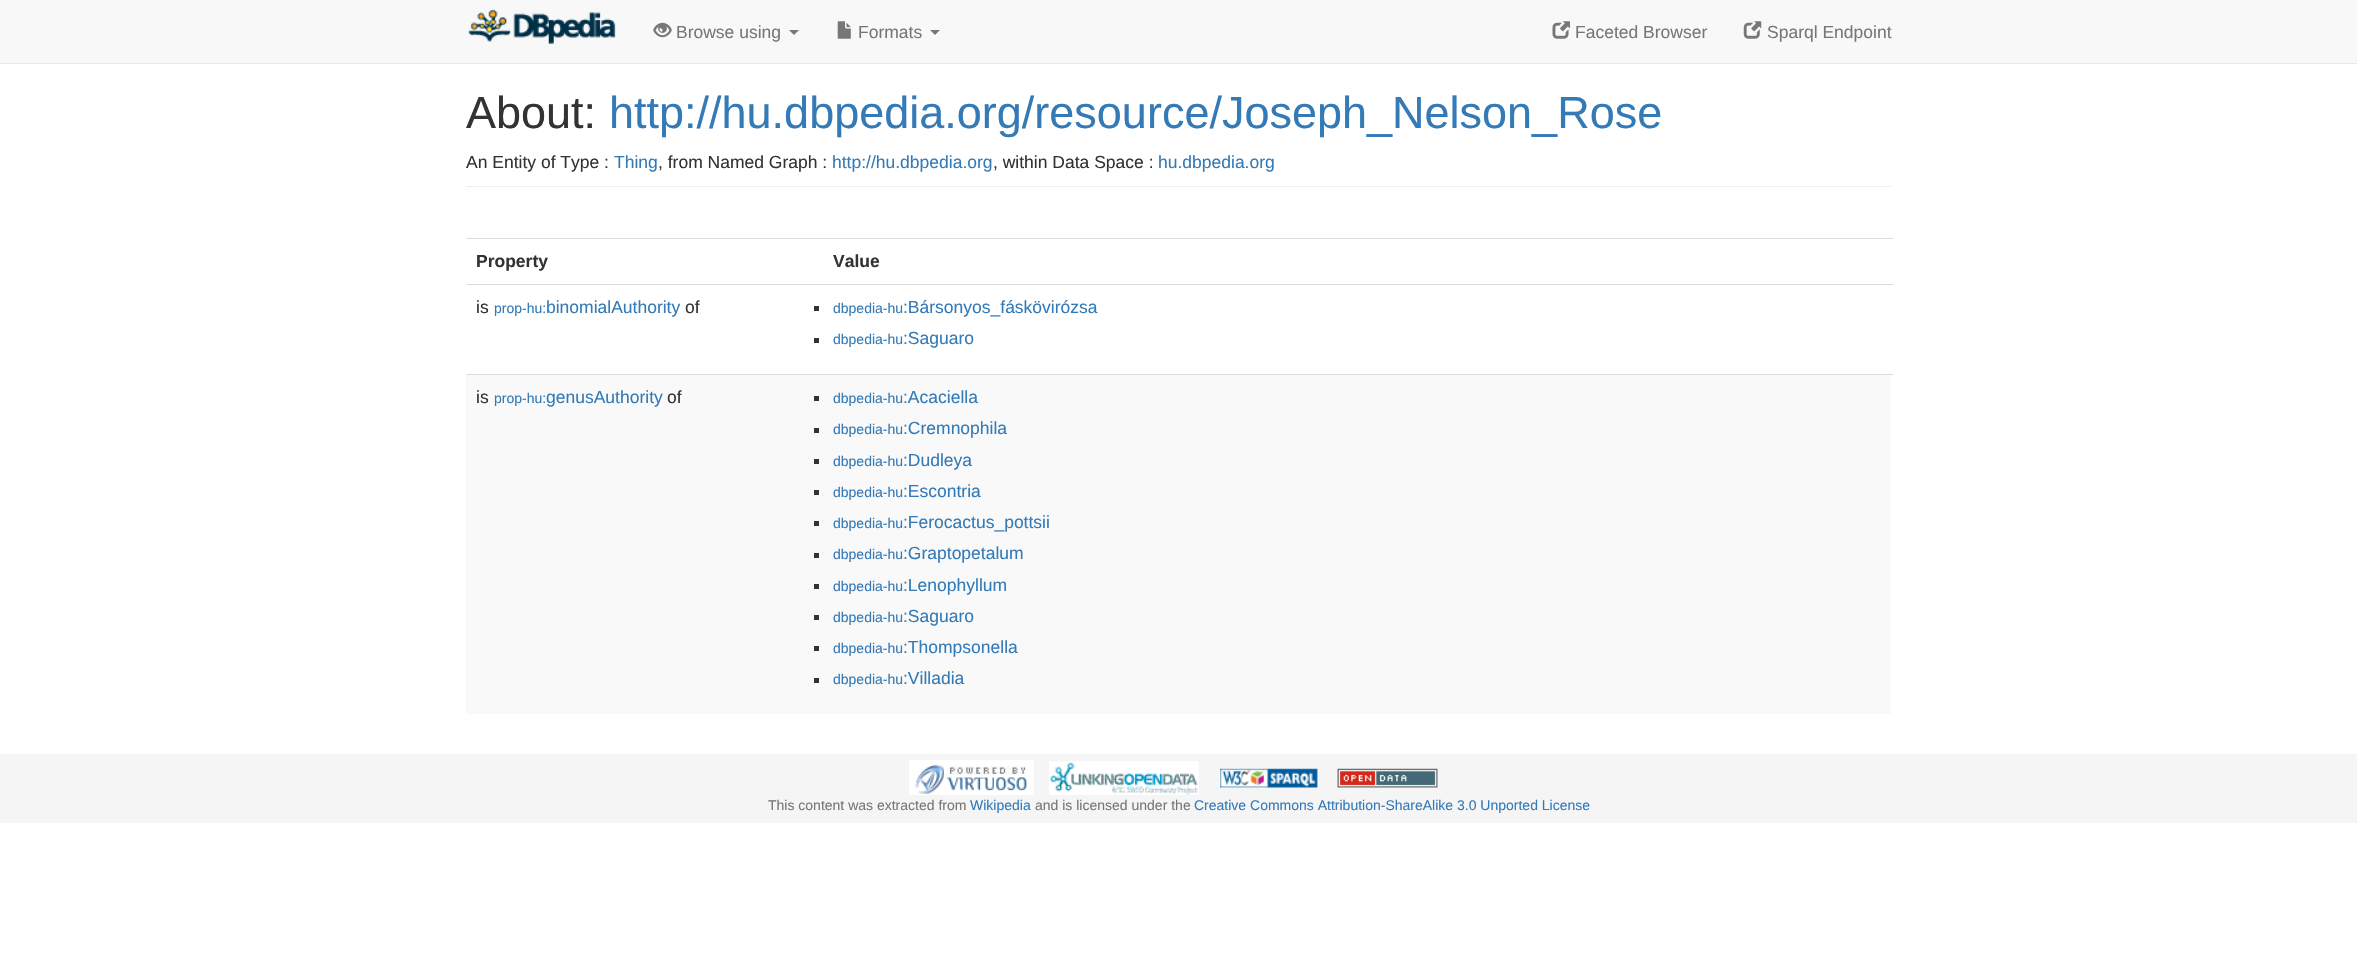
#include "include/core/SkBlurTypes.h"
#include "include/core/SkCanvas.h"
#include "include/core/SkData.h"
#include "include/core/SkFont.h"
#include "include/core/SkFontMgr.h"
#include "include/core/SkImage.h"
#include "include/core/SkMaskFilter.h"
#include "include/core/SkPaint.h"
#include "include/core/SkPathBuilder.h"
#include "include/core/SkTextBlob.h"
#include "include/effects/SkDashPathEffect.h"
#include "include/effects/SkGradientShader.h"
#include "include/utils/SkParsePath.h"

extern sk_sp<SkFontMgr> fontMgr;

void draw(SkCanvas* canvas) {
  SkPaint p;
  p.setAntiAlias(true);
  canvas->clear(SK_ColorWHITE);
  p.setColor(SkColorSetRGB(248, 248, 248));
  canvas->drawRect(SkRect::MakeLTRB(0, 0, 2357, 63), p);
  p.setColor(SkColorSetRGB(231, 231, 231));
  canvas->drawRect(SkRect::MakeLTRB(0, 63, 2357, 64), p);
  canvas->drawImageRect(SkImages::DeferredFromEncodedData(SkData::MakeFromFileName("images/1.png")), SkRect::MakeLTRB(468, 9, 616, 44), SkSamplingOptions());
  canvas->drawImageRect(SkImages::DeferredFromEncodedData(SkData::MakeFromFileName("images/2.png")), SkRect::MakeLTRB(653, 22, 672, 38), SkSamplingOptions());
  p.setColor(SkColorSetRGB(119, 119, 119));
  canvas->drawPath(SkPathBuilder().moveTo(789, 30).lineTo(799, 30).lineTo(794, 35).close().detach(), p);
  canvas->drawImageRect(SkImages::DeferredFromEncodedData(SkData::MakeFromFileName("images/3.png")), SkRect::MakeLTRB(837, 21, 851, 39), SkSamplingOptions());
  canvas->drawPath(SkPathBuilder().moveTo(930, 30).lineTo(940, 30).lineTo(935, 35).close().detach(), p);
  canvas->drawImageRect(SkImages::DeferredFromEncodedData(SkData::MakeFromFileName("images/4.png")), SkRect::MakeLTRB(1552, 21, 1570, 39), SkSamplingOptions());
  canvas->drawImageRect(SkImages::DeferredFromEncodedData(SkData::MakeFromFileName("images/5.png")), SkRect::MakeLTRB(1743, 21, 1762, 39), SkSamplingOptions());
  p.setColor(SkColorSetRGB(238, 238, 238));
  canvas->drawRect(SkRect::MakeLTRB(466, 186, 1891, 187), p);
  p.setColor(SkColorSetRGB(221, 221, 221));
  canvas->drawRect(SkRect::MakeLTRB(466, 238, 1893, 239), p);
  canvas->drawRect(SkRect::MakeLTRB(466, 284, 1893, 285), p);
  p.setColor(SkColorSetRGB(51, 51, 51));
  canvas->drawRect(SkRect::MakeLTRB(814, 306, 819, 311), p);
  canvas->drawRect(SkRect::MakeLTRB(814, 338, 819, 343), p);
  p.setColor(SkColorSetRGB(249, 249, 249));
  canvas->drawRect(SkRect::MakeLTRB(466, 375, 1891, 714), p);
  p.setColor(SkColorSetRGB(221, 221, 221));
  canvas->drawRect(SkRect::MakeLTRB(466, 374, 1893, 375), p);
  p.setColor(SkColorSetRGB(51, 51, 51));
  canvas->drawRect(SkRect::MakeLTRB(814, 396, 819, 401), p);
  canvas->drawRect(SkRect::MakeLTRB(814, 428, 819, 433), p);
  canvas->drawRect(SkRect::MakeLTRB(814, 459, 819, 464), p);
  canvas->drawRect(SkRect::MakeLTRB(814, 490, 819, 495), p);
  canvas->drawRect(SkRect::MakeLTRB(814, 521, 819, 526), p);
  canvas->drawRect(SkRect::MakeLTRB(814, 553, 819, 558), p);
  canvas->drawRect(SkRect::MakeLTRB(814, 584, 819, 589), p);
  canvas->drawRect(SkRect::MakeLTRB(814, 615, 819, 620), p);
  canvas->drawRect(SkRect::MakeLTRB(814, 646, 819, 651), p);
  canvas->drawRect(SkRect::MakeLTRB(814, 678, 819, 683), p);
  p.setColor(SkColorSetRGB(245, 245, 245));
  canvas->drawRect(SkRect::MakeLTRB(0, 754, 2357, 823), p);
  canvas->drawImageRect(SkImages::DeferredFromEncodedData(SkData::MakeFromFileName("images/6.png")), SkRect::MakeLTRB(909, 760, 1034, 795), SkSamplingOptions());
  canvas->drawImageRect(SkImages::DeferredFromEncodedData(SkData::MakeFromFileName("images/7.png")), SkRect::MakeLTRB(1049, 761, 1199, 795), SkSamplingOptions());
  canvas->drawImageRect(SkImages::DeferredFromEncodedData(SkData::MakeFromFileName("images/8.png")), SkRect::MakeLTRB(1219, 768, 1319, 788), SkSamplingOptions());
  canvas->drawImageRect(SkImages::DeferredFromEncodedData(SkData::MakeFromFileName("images/9.png")), SkRect::MakeLTRB(1337, 768, 1438, 788), SkSamplingOptions());
  SkFont font1(fontMgr->matchFamilyStyle("Liberation Sans", SkFontStyle::Normal()), 17.5f);
  font1.setSubpixel(true);
  p.setColor(SkColorSetRGB(119, 119, 119));
  canvas->drawString("Browse using", 676, 38, font1, p);
  canvas->drawString("Formats", 858, 38, font1, p);
  canvas->drawString("Faceted Browser", 1575, 38, font1, p);
  canvas->drawString("Sparql Endpoint", 1767, 38, font1, p);
  SkFont font2(fontMgr->matchFamilyStyle("Liberation Sans", SkFontStyle::Normal()), 45);
  font2.setSubpixel(true);
  p.setColor(SkColorSetRGB(51, 51, 51));
  canvas->drawString("About:", 466, 128, font2, p);
  p.setColor(SkColorSetRGB(51, 122, 183));
  canvas->drawString("http://hu.dbpedia.org/resource/Joseph_Nelson_Rose", 609, 128, font2, p);
  p.setColor(SkColorSetRGB(51, 51, 51));
  canvas->drawString("An Entity of Type :", 466, 168, font1, p);
  p.setColor(SkColorSetRGB(51, 122, 183));
  canvas->drawString("Thing", 614, 168, font1, p);
  p.setColor(SkColorSetRGB(51, 51, 51));
  canvas->drawString(", from Named Graph :", 658, 168, font1, p);
  p.setColor(SkColorSetRGB(51, 122, 183));
  canvas->drawString("http://hu.dbpedia.org", 832, 168, font1, p);
  p.setColor(SkColorSetRGB(51, 51, 51));
  canvas->drawString(", within Data Space :", 993, 168, font1, p);
  p.setColor(SkColorSetRGB(51, 122, 183));
  canvas->drawString("hu.dbpedia.org", 1158, 168, font1, p);
  SkFont font3(fontMgr->matchFamilyStyle("Liberation Sans", SkFontStyle::Bold()), 17.5f);
  font3.setSubpixel(true);
  p.setColor(SkColorSetRGB(51, 51, 51));
  canvas->drawString("Property", 476, 267, font3, p);
  canvas->drawString("Value", 833, 267, font3, p);
  canvas->drawString("is", 476, 313, font1, p);
  SkFont font4(fontMgr->matchFamilyStyle("Liberation Sans", SkFontStyle::Normal()), 14);
  font4.setSubpixel(true);
  p.setColor(SkColorSetRGB(51, 122, 183));
  canvas->drawString("prop-hu:", 494, 313, font4, p);
  canvas->drawString("binomialAuthority", 546, 313, font1, p);
  p.setColor(SkColorSetRGB(51, 51, 51));
  canvas->drawString("of", 685, 313, font1, p);
  p.setColor(SkColorSetRGB(51, 122, 183));
  canvas->drawString("dbpedia-hu", 833, 313, font4, p);
  canvas->drawString(":Bársonyos_fáskövirózsa", 903, 313, font1, p);
  canvas->drawString("dbpedia-hu", 833, 344, font4, p);
  canvas->drawString(":Saguaro", 903, 344, font1, p);
  p.setColor(SkColorSetRGB(51, 51, 51));
  canvas->drawString("is", 476, 403, font1, p);
  p.setColor(SkColorSetRGB(51, 122, 183));
  canvas->drawString("prop-hu:", 494, 403, font4, p);
  canvas->drawString("genusAuthority", 546, 403, font1, p);
  p.setColor(SkColorSetRGB(51, 51, 51));
  canvas->drawString("of", 667, 403, font1, p);
  p.setColor(SkColorSetRGB(51, 122, 183));
  canvas->drawString("dbpedia-hu", 833, 403, font4, p);
  canvas->drawString(":Acaciella", 903, 403, font1, p);
  canvas->drawString("dbpedia-hu", 833, 434, font4, p);
  canvas->drawString(":Cremnophila", 903, 434, font1, p);
  canvas->drawString("dbpedia-hu", 833, 466, font4, p);
  canvas->drawString(":Dudleya", 903, 466, font1, p);
  canvas->drawString("dbpedia-hu", 833, 497, font4, p);
  canvas->drawString(":Escontria", 903, 497, font1, p);
  canvas->drawString("dbpedia-hu", 833, 528, font4, p);
  canvas->drawString(":Ferocactus_pottsii", 903, 528, font1, p);
  canvas->drawString("dbpedia-hu", 833, 559, font4, p);
  canvas->drawString(":Graptopetalum", 903, 559, font1, p);
  canvas->drawString("dbpedia-hu", 833, 591, font4, p);
  canvas->drawString(":Lenophyllum", 903, 591, font1, p);
  canvas->drawString("dbpedia-hu", 833, 622, font4, p);
  canvas->drawString(":Saguaro", 903, 622, font1, p);
  canvas->drawString("dbpedia-hu", 833, 653, font4, p);
  canvas->drawString(":Thompsonella", 903, 653, font1, p);
  canvas->drawString("dbpedia-hu", 833, 684, font4, p);
  canvas->drawString(":Villadia", 903, 684, font1, p);
  p.setColor(SkColorSetRGB(119, 119, 119));
  canvas->drawString("This content was extracted from", 768, 810, font4, p);
  p.setColor(SkColorSetRGB(51, 122, 183));
  canvas->drawString("Wikipedia", 970, 810, font4, p);
  p.setColor(SkColorSetRGB(119, 119, 119));
  canvas->drawString("and is licensed under the", 1035, 810, font4, p);
  p.setColor(SkColorSetRGB(51, 122, 183));
  canvas->drawString("Creative Commons Attribution-ShareAlike 3.0 Unported License", 1194, 810, font4, p);
}
